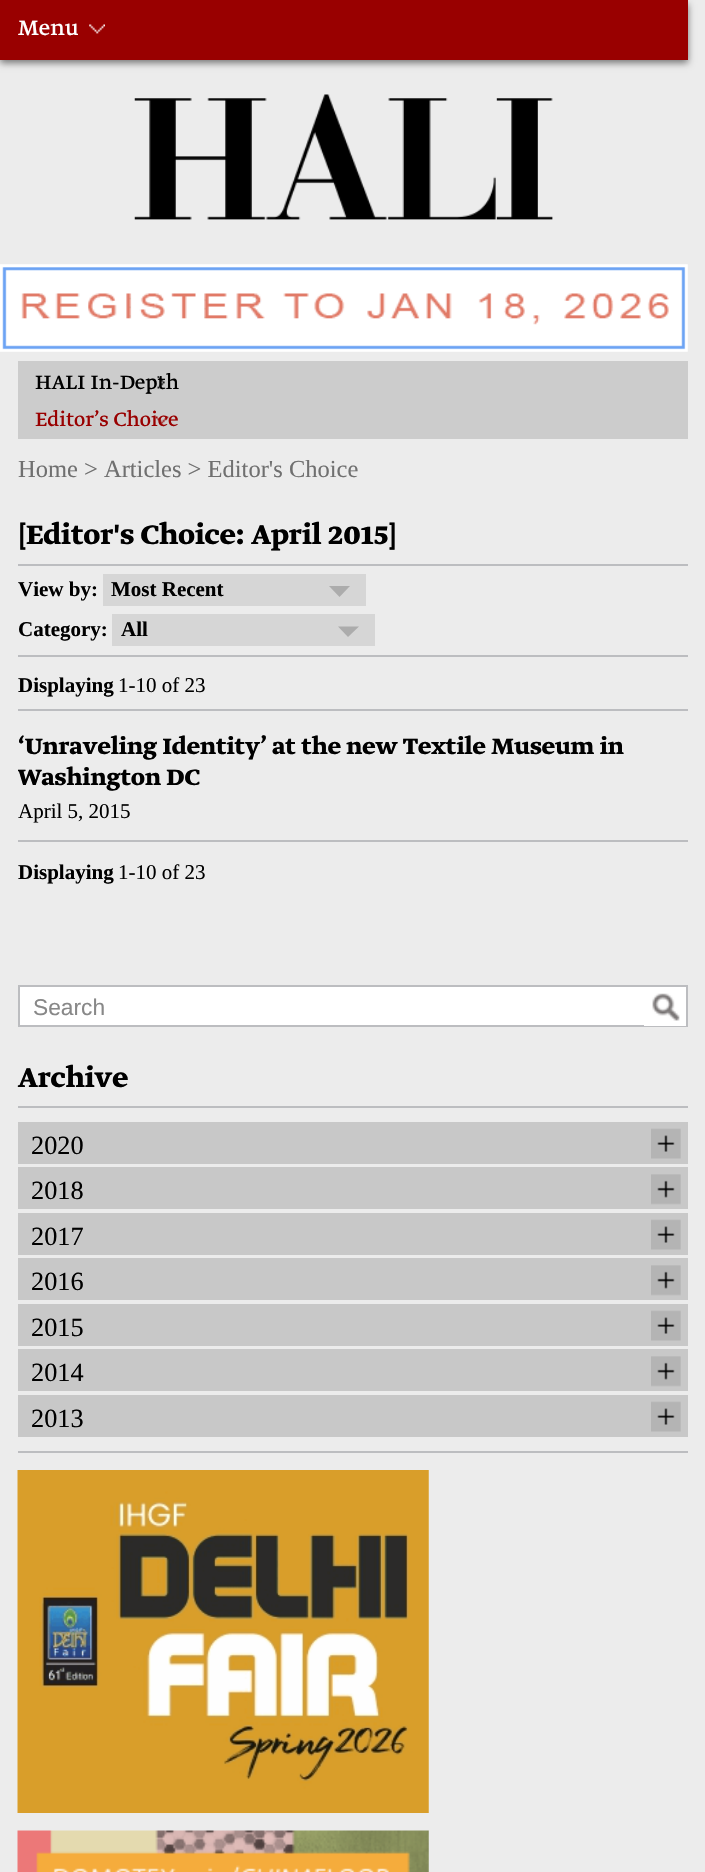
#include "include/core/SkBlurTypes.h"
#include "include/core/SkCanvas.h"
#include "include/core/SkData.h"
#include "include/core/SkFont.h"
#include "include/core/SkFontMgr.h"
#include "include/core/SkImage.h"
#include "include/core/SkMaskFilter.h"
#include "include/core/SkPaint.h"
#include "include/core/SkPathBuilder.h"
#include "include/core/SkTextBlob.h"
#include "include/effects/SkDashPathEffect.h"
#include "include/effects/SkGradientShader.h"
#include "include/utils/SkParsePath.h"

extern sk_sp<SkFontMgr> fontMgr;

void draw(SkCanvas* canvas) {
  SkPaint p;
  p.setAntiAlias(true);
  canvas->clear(SkColorSetRGB(236, 236, 236));
  p.setColor(SkColorSetARGB(128, 0, 0, 0));
  p.setMaskFilter(SkMaskFilter::MakeBlur(kNormal_SkBlurStyle, 3.5f));
  canvas->drawRect(SkRect::MakeLTRB(0, 4, 688, 63), p);
  p.setMaskFilter(nullptr);
  p.setColor(SkColorSetRGB(153, 0, 0));
  canvas->drawRect(SkRect::MakeLTRB(0, 0, 688, 60), p);
  canvas->drawImageRect(SkImages::DeferredFromEncodedData(SkData::MakeFromFileName("images/1.png")), SkRect::MakeLTRB(89, 24, 105, 34), SkSamplingOptions());
  canvas->drawImageRect(SkImages::DeferredFromEncodedData(SkData::MakeFromFileName("images/2.png")), SkRect::MakeLTRB(134, 94, 553, 220), SkSamplingOptions());
  canvas->drawImageRect(SkImages::DeferredFromEncodedData(SkData::MakeFromFileName("images/3.png")), SkRect::MakeLTRB(0, 264, 688, 352), SkSamplingOptions());
  p.setColor(SkColorSetRGB(204, 204, 204));
  canvas->drawRect(SkRect::MakeLTRB(18, 361, 688, 439), p);
  canvas->drawImageRect(SkImages::DeferredFromEncodedData(SkData::MakeFromFileName("images/4.png")), SkRect::MakeLTRB(157, 376, 165, 389), SkSamplingOptions());
  canvas->drawImageRect(SkImages::DeferredFromEncodedData(SkData::MakeFromFileName("images/5.png")), SkRect::MakeLTRB(155, 416, 169, 424), SkSamplingOptions());
  p.setColor(SkColorSetRGB(188, 189, 192));
  canvas->drawRect(SkRect::MakeLTRB(18, 564, 688, 566), p);
  canvas->drawRect(SkRect::MakeLTRB(18, 655, 688, 657), p);
  p.setColor(SkColorSetRGB(214, 214, 214));
  canvas->drawRect(SkRect::MakeLTRB(103, 574, 366, 606), p);
  p.setColor(SkColorSetRGB(172, 172, 172));
  canvas->drawPath(SkPathBuilder().moveTo(329, 586).lineTo(350, 586).lineTo(339.5f, 597).close().detach(), p);
  p.setColor(SkColorSetRGB(214, 214, 214));
  canvas->drawRect(SkRect::MakeLTRB(112, 614, 375, 646), p);
  p.setColor(SkColorSetRGB(172, 172, 172));
  canvas->drawPath(SkPathBuilder().moveTo(338, 626.5f).lineTo(359, 626.5f).lineTo(348, 637).close().detach(), p);
  p.setColor(SkColorSetRGB(188, 189, 192));
  canvas->drawRect(SkRect::MakeLTRB(18, 709, 688, 711), p);
  canvas->drawRect(SkRect::MakeLTRB(18, 840, 688, 842), p);
  p.setColor(SK_ColorWHITE);
  canvas->drawRect(SkRect::MakeLTRB(20, 987, 644, 1025), p);
  p.setStyle(SkPaint::kStroke_Style);
  p.setStrokeWidth(2);
  p.setColor(SkColorSetRGB(188, 189, 192));
  canvas->drawRect(SkRect::MakeLTRB(19, 986, 687, 1026), p);
  p.setStyle(SkPaint::kFill_Style);
  p.setColor(SK_ColorWHITE);
  canvas->drawRect(SkRect::MakeLTRB(644, 987, 686, 1026), p);
  canvas->drawImageRect(SkImages::DeferredFromEncodedData(SkData::MakeFromFileName("images/6.png")), SkRect::MakeLTRB(652, 993, 680, 1021), SkSamplingOptions());
  p.setColor(SkColorSetRGB(188, 189, 192));
  canvas->drawRect(SkRect::MakeLTRB(18, 1106, 688, 1108), p);
  canvas->drawRect(SkRect::MakeLTRB(18, 1451, 688, 1453), p);
  p.setColor(SkColorSetRGB(200, 200, 200));
  canvas->drawRect(SkRect::MakeLTRB(18, 1122, 688, 1164), p);
  canvas->drawImageRect(SkImages::DeferredFromEncodedData(SkData::MakeFromFileName("images/7.png")), SkRect::MakeLTRB(651, 1128, 681, 1159), SkSamplingOptions());
  canvas->drawRect(SkRect::MakeLTRB(18, 1167, 688, 1209), p);
  canvas->drawImageRect(SkImages::DeferredFromEncodedData(SkData::MakeFromFileName("images/8.png")), SkRect::MakeLTRB(651, 1174, 681, 1205), SkSamplingOptions());
  canvas->drawRect(SkRect::MakeLTRB(18, 1213, 688, 1255), p);
  canvas->drawImageRect(SkImages::DeferredFromEncodedData(SkData::MakeFromFileName("images/7.png")), SkRect::MakeLTRB(651, 1219, 681, 1250), SkSamplingOptions());
  canvas->drawRect(SkRect::MakeLTRB(18, 1258, 688, 1300), p);
  canvas->drawImageRect(SkImages::DeferredFromEncodedData(SkData::MakeFromFileName("images/8.png")), SkRect::MakeLTRB(651, 1265, 681, 1296), SkSamplingOptions());
  canvas->drawRect(SkRect::MakeLTRB(18, 1304, 688, 1346), p);
  canvas->drawImageRect(SkImages::DeferredFromEncodedData(SkData::MakeFromFileName("images/7.png")), SkRect::MakeLTRB(651, 1310, 681, 1341), SkSamplingOptions());
  canvas->drawRect(SkRect::MakeLTRB(18, 1349, 688, 1391), p);
  canvas->drawImageRect(SkImages::DeferredFromEncodedData(SkData::MakeFromFileName("images/8.png")), SkRect::MakeLTRB(651, 1356, 681, 1387), SkSamplingOptions());
  canvas->drawRect(SkRect::MakeLTRB(18, 1395, 688, 1437), p);
  canvas->drawImageRect(SkImages::DeferredFromEncodedData(SkData::MakeFromFileName("images/7.png")), SkRect::MakeLTRB(651, 1401, 681, 1432), SkSamplingOptions());
  canvas->drawImageRect(SkImages::DeferredFromEncodedData(SkData::MakeFromFileName("images/9.png")), SkRect::MakeLTRB(17, 1470, 429, 1813), SkSamplingOptions());
  canvas->drawImageRect(SkImages::DeferredFromEncodedData(SkData::MakeFromFileName("images/10.png")), SkRect::MakeLTRB(17, 1830, 429, 1872), SkSamplingOptions());
  SkFont font1(fontMgr->matchFamilyStyle("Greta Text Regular", SkFontStyle::Normal()), 24.5f);
  font1.setSubpixel(true);
  p.setColor(SK_ColorWHITE);
  canvas->drawString("Menu", 18, 35, font1, p);
  SkFont font2(fontMgr->matchFamilyStyle("Greta Text Regular", SkFontStyle::Normal()), 22.75f);
  font2.setSubpixel(true);
  p.setColor(SK_ColorBLACK);
  canvas->drawString("HALI In-Depth", 35, 389, font2, p);
  p.setColor(SkColorSetRGB(153, 0, 0));
  canvas->drawString("Editor’s Choice", 35, 426, font2, p);
  SkFont font3(fontMgr->matchFamilyStyle("Liberation Serif", SkFontStyle::Normal()), 24.5f);
  font3.setSubpixel(true);
  p.setColor(SkColorSetRGB(112, 112, 112));
  canvas->drawString("Home > Articles > Editor's Choice", 18, 477, font3, p);
  SkFont font4(fontMgr->matchFamilyStyle("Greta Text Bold", SkFontStyle::Bold()), 31.5f);
  font4.setSubpixel(true);
  p.setColor(SK_ColorBLACK);
  canvas->drawString("[Editor's Choice: April 2015]", 18, 544, font4, p);
  SkFont font5(fontMgr->matchFamilyStyle("Liberation Serif", SkFontStyle::Bold()), 21);
  font5.setSubpixel(true);
  canvas->drawString("View by:", 18, 596, font5, p);
  canvas->drawString("Most Recent", 111, 596, font5, p);
  canvas->drawString("Category:", 18, 636, font5, p);
  canvas->drawString("All", 121, 636, font5, p);
  canvas->drawString("Displaying", 18, 692, font5, p);
  SkFont font6(fontMgr->matchFamilyStyle("Liberation Serif", SkFontStyle::Normal()), 21);
  font6.setSubpixel(true);
  canvas->drawString("1-10 of 23", 118, 692, font6, p);
  SkFont font7(fontMgr->matchFamilyStyle("Greta Text Bold", SkFontStyle::Bold()), 26.25f);
  font7.setSubpixel(true);
  canvas->drawString("‘Unraveling Identity’ at the new Textile Museum in", 18, 754, font7, p);
  canvas->save();
  canvas->clipRect(SkRect::MakeLTRB(18, 711, 688, 840));
  canvas->drawString("Washington DC", 18, 785, font7, p);
  canvas->restore();
  canvas->drawString("April 5, 2015", 18, 818, font6, p);
  canvas->drawString("Displaying", 18, 879, font5, p);
  canvas->drawString("1-10 of 23", 118, 879, font6, p);
  SkFont font8(fontMgr->matchFamilyStyle("Liberation Sans", SkFontStyle::Normal()), 22.75f);
  font8.setSubpixel(true);
  p.setColor(SkColorSetRGB(136, 136, 136));
  canvas->drawString("Search", 33, 1015, font8, p);
  p.setColor(SK_ColorBLACK);
  canvas->drawString("Archive", 18, 1087, font4, p);
  SkFont font9(fontMgr->matchFamilyStyle("Liberation Serif", SkFontStyle::Normal()), 26.25f);
  font9.setSubpixel(true);
  canvas->drawString("2020", 31, 1154, font9, p);
  canvas->drawString("2018", 31, 1199, font9, p);
  canvas->drawString("2017", 31, 1245, font9, p);
  canvas->drawString("2016", 31, 1290, font9, p);
  canvas->drawString("2015", 31, 1336, font9, p);
  canvas->drawString("2014", 31, 1381, font9, p);
  canvas->drawString("2013", 31, 1427, font9, p);
}
